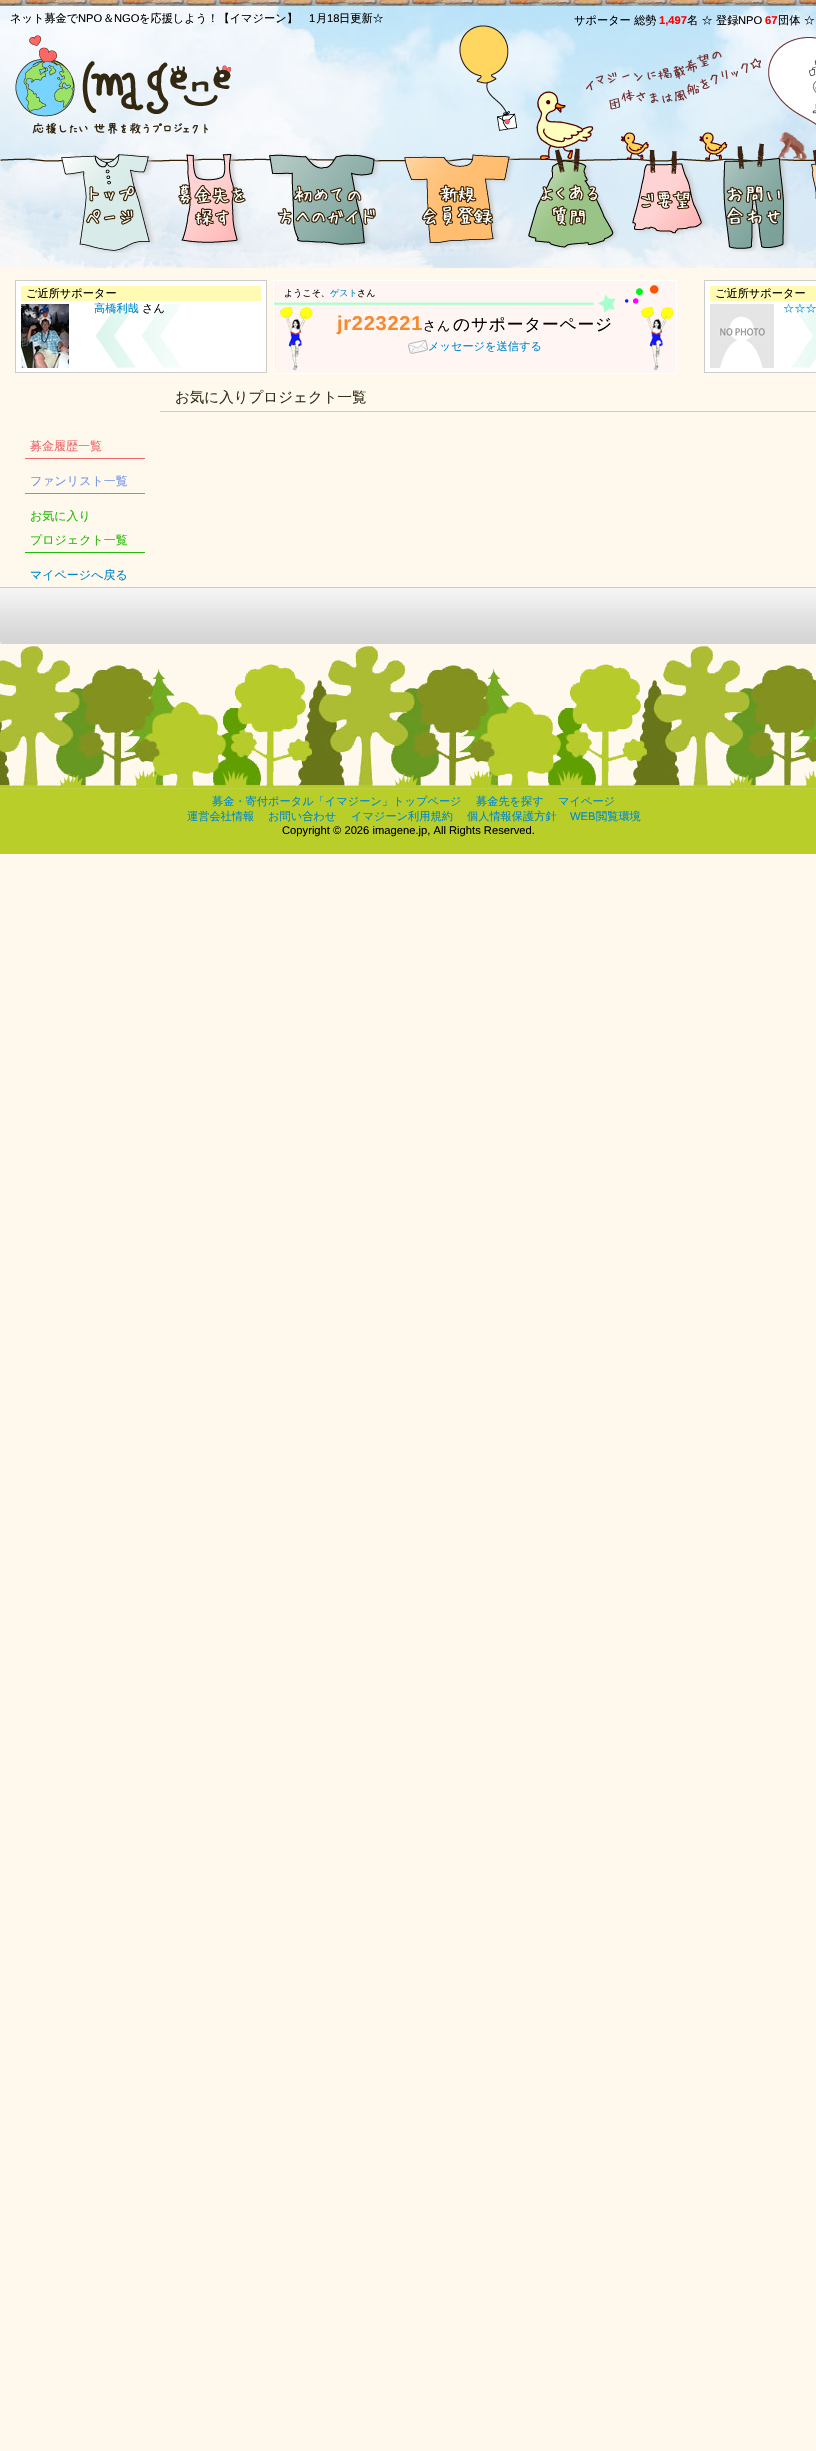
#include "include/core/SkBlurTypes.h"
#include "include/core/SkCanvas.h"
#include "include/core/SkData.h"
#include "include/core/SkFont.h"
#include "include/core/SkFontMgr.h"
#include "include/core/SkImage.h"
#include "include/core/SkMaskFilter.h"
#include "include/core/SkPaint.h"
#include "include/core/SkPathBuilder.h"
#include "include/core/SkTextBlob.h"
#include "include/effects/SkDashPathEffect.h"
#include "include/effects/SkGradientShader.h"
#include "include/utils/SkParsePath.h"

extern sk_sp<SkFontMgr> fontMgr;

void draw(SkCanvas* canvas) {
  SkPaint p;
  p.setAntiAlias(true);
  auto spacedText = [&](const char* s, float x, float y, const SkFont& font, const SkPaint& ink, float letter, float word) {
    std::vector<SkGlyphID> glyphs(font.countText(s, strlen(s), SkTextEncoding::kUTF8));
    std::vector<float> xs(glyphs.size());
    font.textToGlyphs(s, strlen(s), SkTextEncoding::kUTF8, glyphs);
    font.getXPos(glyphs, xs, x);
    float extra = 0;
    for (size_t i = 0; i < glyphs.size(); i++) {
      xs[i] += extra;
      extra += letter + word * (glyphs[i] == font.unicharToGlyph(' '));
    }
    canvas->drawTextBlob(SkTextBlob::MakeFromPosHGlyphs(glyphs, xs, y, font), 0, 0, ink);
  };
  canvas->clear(SkColorSetRGB(255, 248, 236));
  canvas->drawImageRect(SkImages::DeferredFromEncodedData(SkData::MakeFromFileName("images/1.png")), SkRect::MakeLTRB(0, 0, 816, 6), SkSamplingOptions());
  canvas->drawImageRect(SkImages::DeferredFromEncodedData(SkData::MakeFromFileName("images/2.png")), SkRect::MakeLTRB(0, 6, 816, 268), SkSamplingOptions());
  canvas->drawImageRect(SkImages::DeferredFromEncodedData(SkData::MakeFromFileName("images/3.png")), SkRect::MakeLTRB(15, 35, 232, 134), SkSamplingOptions());
  canvas->drawImageRect(SkImages::DeferredFromEncodedData(SkData::MakeFromFileName("images/4.png")), SkRect::MakeLTRB(809, 59, 816, 76), SkSamplingOptions());
  canvas->drawImageRect(SkImages::DeferredFromEncodedData(SkData::MakeFromFileName("images/5.png")), SkRect::MakeLTRB(812, 81, 816, 93), SkSamplingOptions());
  canvas->drawImageRect(SkImages::DeferredFromEncodedData(SkData::MakeFromFileName("images/6.png")), SkRect::MakeLTRB(812, 104, 816, 114), SkSamplingOptions());
  canvas->drawImageRect(SkImages::DeferredFromEncodedData(SkData::MakeFromFileName("images/7.png")), SkRect::MakeLTRB(0, 153, 160, 253), SkSamplingOptions());
  canvas->drawImageRect(SkImages::DeferredFromEncodedData(SkData::MakeFromFileName("images/8.png")), SkRect::MakeLTRB(160, 153, 260, 246), SkSamplingOptions());
  canvas->drawImageRect(SkImages::DeferredFromEncodedData(SkData::MakeFromFileName("images/9.png")), SkRect::MakeLTRB(260, 153, 390, 248), SkSamplingOptions());
  canvas->drawImageRect(SkImages::DeferredFromEncodedData(SkData::MakeFromFileName("images/10.png")), SkRect::MakeLTRB(390, 153, 520, 246), SkSamplingOptions());
  canvas->drawImageRect(SkImages::DeferredFromEncodedData(SkData::MakeFromFileName("images/11.png")), SkRect::MakeLTRB(520, 148, 620, 251), SkSamplingOptions());
  canvas->drawImageRect(SkImages::DeferredFromEncodedData(SkData::MakeFromFileName("images/12.png")), SkRect::MakeLTRB(620, 150, 710, 236), SkSamplingOptions());
  canvas->drawImageRect(SkImages::DeferredFromEncodedData(SkData::MakeFromFileName("images/13.png")), SkRect::MakeLTRB(710, 143, 800, 252), SkSamplingOptions());
  canvas->drawImageRect(SkImages::DeferredFromEncodedData(SkData::MakeFromFileName("images/14.png")), SkRect::MakeLTRB(800, 150, 816, 199), SkSamplingOptions());
  canvas->drawImageRect(SkImages::DeferredFromEncodedData(SkData::MakeFromFileName("images/15.png")), SkRect::MakeLTRB(459, 25, 518, 131), SkSamplingOptions());
  canvas->drawImageRect(SkImages::DeferredFromEncodedData(SkData::MakeFromFileName("images/16.png")), SkRect::MakeLTRB(536, 51, 761, 160), SkSamplingOptions());
  canvas->drawImageRect(SkImages::DeferredFromEncodedData(SkData::MakeFromFileName("images/17.png")), SkRect::MakeLTRB(16, 281, 266, 372), SkSamplingOptions());
  p.setStyle(SkPaint::kStroke_Style);
  p.setStrokeWidth(1);
  p.setColor(SkColorSetRGB(204, 204, 204));
  canvas->drawRect(SkRect::MakeLTRB(15.5f, 280.5f, 266.5f, 372.5f), p);
  p.setStyle(SkPaint::kFill_Style);
  p.setColor(SkColorSetRGB(255, 251, 179));
  canvas->drawRect(SkRect::MakeLTRB(21, 286, 261, 301), p);
  canvas->drawImageRect(SkImages::DeferredFromEncodedData(SkData::MakeFromFileName("images/18.png")), SkRect::MakeLTRB(21, 304, 69, 368), SkSamplingOptions());
  canvas->drawImageRect(SkImages::DeferredFromEncodedData(SkData::MakeFromFileName("images/19.png")), SkRect::MakeLTRB(274, 281, 676, 373), SkSamplingOptions());
  p.setStyle(SkPaint::kStroke_Style);
  p.setColor(SK_ColorWHITE);
  canvas->drawRect(SkRect::MakeLTRB(273.5f, 280.5f, 676.5f, 373.5f), p);
  canvas->drawImageRect(SkImages::DeferredFromEncodedData(SkData::MakeFromFileName("images/20.png")), SkRect::MakeLTRB(408, 340, 428, 354), SkSamplingOptions());
  canvas->drawImageRect(SkImages::DeferredFromEncodedData(SkData::MakeFromFileName("images/21.png")), SkRect::MakeLTRB(705, 281, 816, 372), SkSamplingOptions());
  p.setColor(SkColorSetRGB(204, 204, 204));
  canvas->drawRect(SkRect::MakeLTRB(704.5f, 280.5f, 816.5f, 372.5f), p);
  p.setStyle(SkPaint::kFill_Style);
  p.setColor(SkColorSetRGB(255, 251, 179));
  canvas->drawRect(SkRect::MakeLTRB(710, 286, 816, 301), p);
  canvas->drawImageRect(SkImages::DeferredFromEncodedData(SkData::MakeFromFileName("images/22.png")), SkRect::MakeLTRB(710, 304, 774, 368), SkSamplingOptions());
  p.setColor(SkColorSetRGB(204, 204, 204));
  canvas->drawRect(SkRect::MakeLTRB(160, 411, 816, 412), p);
  p.setColor(SkColorSetRGB(237, 104, 109));
  canvas->drawRect(SkRect::MakeLTRB(25, 458, 145, 459), p);
  p.setColor(SkColorSetRGB(114, 149, 237));
  canvas->drawRect(SkRect::MakeLTRB(25, 493, 145, 494), p);
  p.setColor(SkColorSetRGB(38, 185, 9));
  canvas->drawRect(SkRect::MakeLTRB(25, 552, 145, 553), p);
  canvas->drawImageRect(SkImages::DeferredFromEncodedData(SkData::MakeFromFileName("images/23.png")), SkRect::MakeLTRB(0, 587, 816, 644), SkSamplingOptions());
  canvas->drawImageRect(SkImages::DeferredFromEncodedData(SkData::MakeFromFileName("images/24.png")), SkRect::MakeLTRB(0, 646, 816, 854), SkSamplingOptions());
  SkFont font1(fontMgr->matchFamilyStyle("WenQuanYi Zen Hei", SkFontStyle(500, SkFontStyle::kNormal_Width, SkFontStyle::kUpright_Slant)), 11.2f);
  font1.setSubpixel(true);
  p.setColor(SK_ColorBLACK);
  canvas->drawString("ネット募金で", 10, 22, font1, p);
  SkFont font2(fontMgr->matchFamilyStyle("Liberation Sans", SkFontStyle::Normal()), 11.2f);
  font2.setSubpixel(true);
  canvas->drawString("NPO", 78, 22, font2, p);
  canvas->drawString("＆", 103, 22, font1, p);
  canvas->drawString("NGO", 114, 22, font2, p);
  canvas->drawString("を応援しよう！【イマジーン】", 139, 22, font1, p);
  canvas->drawString("1", 309, 22, font2, p);
  canvas->drawString("月", 316, 22, font1, p);
  canvas->drawString("18", 327, 22, font2, p);
  canvas->drawString("日更新☆", 339, 22, font1, p);
  canvas->drawString("サポーター 総勢", 574, 24, font1, p);
  SkFont font3(fontMgr->matchFamilyStyle("Liberation Sans", SkFontStyle::Bold()), 11.2f);
  font3.setSubpixel(true);
  p.setColor(SkColorSetRGB(255, 0, 0));
  canvas->drawString("1,497", 659, 24, font3, p);
  p.setColor(SK_ColorBLACK);
  canvas->drawString("名 ☆ 登録", 687, 24, font1, p);
  canvas->drawString("NPO", 738, 24, font2, p);
  p.setColor(SkColorSetRGB(255, 0, 0));
  canvas->drawString("67", 765, 24, font3, p);
  p.setColor(SK_ColorBLACK);
  canvas->drawString("団体 ☆", 778, 24, font1, p);
  canvas->drawString("ご近所サポーター", 26, 297, font1, p);
  p.setColor(SkColorSetRGB(0, 136, 204));
  canvas->drawString("高橋利哉", 94, 312, font1, p);
  p.setColor(SK_ColorBLACK);
  canvas->drawString("さん", 142, 312, font1, p);
  SkFont font4(fontMgr->matchFamilyStyle("WenQuanYi Zen Hei", SkFontStyle(500, SkFontStyle::kNormal_Width, SkFontStyle::kUpright_Slant)), 9);
  font4.setSubpixel(true);
  canvas->drawString("ようこそ、", 284, 296, font4, p);
  p.setColor(SkColorSetRGB(0, 136, 204));
  canvas->drawString("ゲスト", 330, 296, font4, p);
  p.setColor(SK_ColorBLACK);
  canvas->drawString("さん", 357, 296, font4, p);
  SkFont font5(fontMgr->matchFamilyStyle("Liberation Sans", SkFontStyle::Bold()), 20);
  font5.setSubpixel(true);
  p.setColor(SkColorSetRGB(247, 138, 47));
  spacedText("jr223221", 337, 330, font5, p, 0.75f, 0);
  SkFont font6(fontMgr->matchFamilyStyle("WenQuanYi Zen Hei", SkFontStyle(500, SkFontStyle::kNormal_Width, SkFontStyle::kUpright_Slant)), 13);
  font6.setSubpixel(true);
  p.setColor(SK_ColorBLACK);
  spacedText("さん", 423, 330, font6, p, 0.75f, 0);
  SkFont font7(fontMgr->matchFamilyStyle("WenQuanYi Zen Hei", SkFontStyle(500, SkFontStyle::kNormal_Width, SkFontStyle::kUpright_Slant)), 16.75f);
  font7.setSubpixel(true);
  spacedText("のサポーターページ", 453, 330, font7, p, 0.75f, 0);
  p.setColor(SkColorSetRGB(0, 136, 204));
  canvas->drawString("メッセージを送信する", 428, 350, font1, p);
  p.setColor(SK_ColorBLACK);
  canvas->drawString("ご近所サポーター", 715, 297, font1, p);
  p.setColor(SkColorSetRGB(0, 136, 204));
  canvas->drawString("☆☆☆", 783, 312, font1, p);
  SkFont font8(fontMgr->matchFamilyStyle("WenQuanYi Zen Hei", SkFontStyle(500, SkFontStyle::kNormal_Width, SkFontStyle::kUpright_Slant)), 14.5f);
  font8.setSubpixel(true);
  p.setColor(SkColorSetRGB(52, 45, 26));
  canvas->drawString("お気に入りプロジェクト一覧", 175, 402, font8, p);
  SkFont font9(fontMgr->matchFamilyStyle("WenQuanYi Zen Hei", SkFontStyle(500, SkFontStyle::kNormal_Width, SkFontStyle::kUpright_Slant)), 12);
  font9.setSubpixel(true);
  p.setColor(SkColorSetRGB(237, 104, 109));
  canvas->drawString("募金履歴一覧", 30, 450, font9, p);
  p.setColor(SkColorSetRGB(114, 149, 237));
  canvas->drawString("ファンリスト一覧", 30, 485, font9, p);
  p.setColor(SkColorSetRGB(38, 185, 9));
  canvas->drawString("お気に入り", 30, 520, font9, p);
  canvas->drawString("プロジェクト一覧", 30, 544, font9, p);
  p.setColor(SkColorSetRGB(0, 136, 204));
  canvas->drawString("マイページへ戻る", 30, 579, font9, p);
  canvas->drawString("募金・寄付ポータル「イマジーン」トップページ", 212, 805, font1, p);
  canvas->drawString("募金先を探す", 476, 805, font1, p);
  canvas->drawString("マイページ", 558, 805, font1, p);
  canvas->drawString("運営会社情報", 187, 820, font1, p);
  canvas->drawString("お問い合わせ", 268, 820, font1, p);
  canvas->drawString("イマジーン利用規約", 351, 820, font1, p);
  canvas->drawString("個人情報保護方針", 467, 820, font1, p);
  canvas->drawString("WEB", 570, 820, font2, p);
  canvas->drawString("閲覧環境", 596, 820, font1, p);
  p.setColor(SK_ColorBLACK);
  canvas->drawString("Copyright © 2026 imagene.jp, All Rights Reserved.", 282, 834, font2, p);
}
